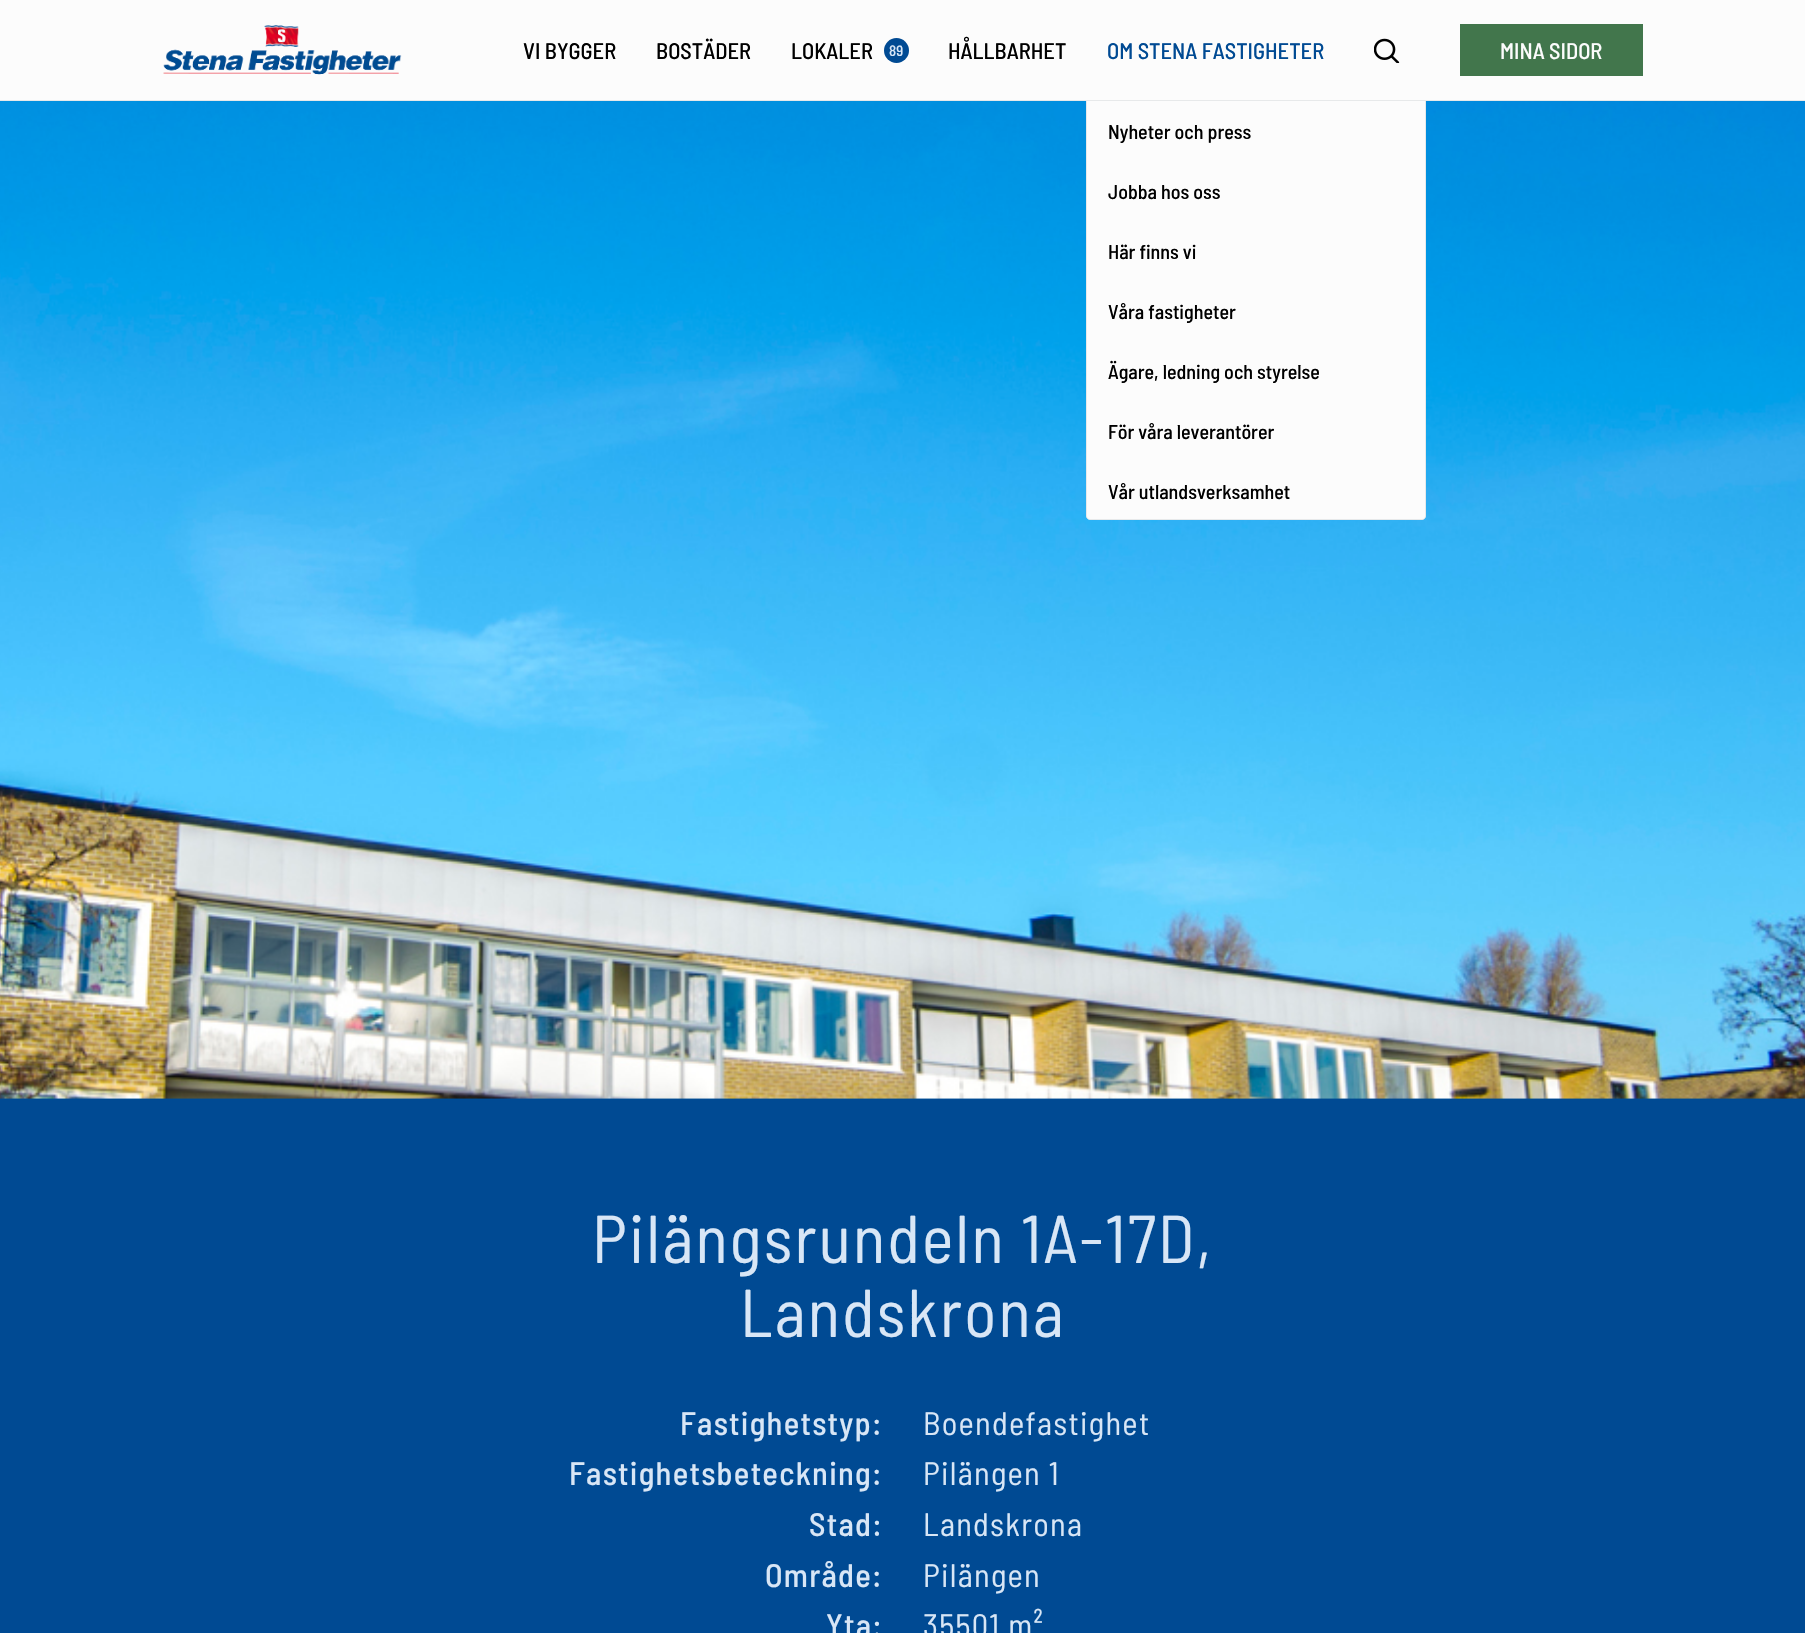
#include "include/core/SkBlurTypes.h"
#include "include/core/SkCanvas.h"
#include "include/core/SkData.h"
#include "include/core/SkFont.h"
#include "include/core/SkFontMgr.h"
#include "include/core/SkImage.h"
#include "include/core/SkMaskFilter.h"
#include "include/core/SkPaint.h"
#include "include/core/SkPathBuilder.h"
#include "include/core/SkTextBlob.h"
#include "include/effects/SkDashPathEffect.h"
#include "include/effects/SkGradientShader.h"
#include "include/utils/SkParsePath.h"

extern sk_sp<SkFontMgr> fontMgr;

void draw(SkCanvas* canvas) {
  SkPaint p;
  p.setAntiAlias(true);
  auto spacedText = [&](const char* s, float x, float y, const SkFont& font, const SkPaint& ink, float letter, float word) {
    std::vector<SkGlyphID> glyphs(font.countText(s, strlen(s), SkTextEncoding::kUTF8));
    std::vector<float> xs(glyphs.size());
    font.textToGlyphs(s, strlen(s), SkTextEncoding::kUTF8, glyphs);
    font.getXPos(glyphs, xs, x);
    float extra = 0;
    for (size_t i = 0; i < glyphs.size(); i++) {
      xs[i] += extra;
      extra += letter + word * (glyphs[i] == font.unicharToGlyph(' '));
    }
    canvas->drawTextBlob(SkTextBlob::MakeFromPosHGlyphs(glyphs, xs, y, font), 0, 0, ink);
  };
  canvas->clear(SkColorSetRGB(0, 74, 147));
  p.setColor(SkColorSetRGB(231, 233, 234));
  canvas->drawRect(SkRect::MakeLTRB(0, 100, 1805, 101), p);
  p.setColor(SkColorSetRGB(252, 252, 252));
  canvas->drawRect(SkRect::MakeLTRB(0, 0, 1805, 100), p);
  canvas->drawImageRect(SkImages::DeferredFromEncodedData(SkData::MakeFromFileName("images/1.png")), SkRect::MakeLTRB(163, 25, 402, 75), SkSamplingOptions());
  p.setColor(SkColorSetRGB(0, 74, 147));
  canvas->drawCircle(896.5f, 50.5f, 12.5f, p);
  canvas->drawImageRect(SkImages::DeferredFromEncodedData(SkData::MakeFromFileName("images/3.png")), SkRect::MakeLTRB(0, 101, 1805, 1099), SkSamplingOptions());
  p.setColor(SkColorSetRGB(252, 252, 252));
  canvas->drawPath(SkPathBuilder().moveTo(1086.5f, 100.5f).lineTo(1425.5f, 100.5f).lineTo(1425.5f, 516).cubicTo(1425.5f, 518, 1424, 519.5f, 1422, 519.5f).lineTo(1090, 519.5f).cubicTo(1088, 519.5f, 1086.5f, 518, 1086.5f, 516).close().detach(), p);
  p.setStyle(SkPaint::kStroke_Style);
  p.setStrokeWidth(1);
  p.setColor(SkColorSetRGB(231, 233, 234));
  canvas->drawPath(SkPathBuilder().moveTo(1086.5f, 100.5f).lineTo(1425.5f, 100.5f).lineTo(1425.5f, 516).cubicTo(1425.5f, 518, 1424, 519.5f, 1422, 519.5f).lineTo(1090, 519.5f).cubicTo(1088, 519.5f, 1086.5f, 518, 1086.5f, 516).close().detach(), p);
  canvas->drawImageRect(SkImages::DeferredFromEncodedData(SkData::MakeFromFileName("images/2.png")), SkRect::MakeLTRB(1374, 38, 1400, 63), SkSamplingOptions());
  p.setStyle(SkPaint::kFill_Style);
  p.setColor(SkColorSetRGB(66, 118, 76));
  canvas->drawRect(SkRect::MakeLTRB(1460, 24, 1643, 76), p);
  SkFont font1(fontMgr->matchFamilyStyle("Barlow Semi Condensed", SkFontStyle(500, SkFontStyle::kNormal_Width, SkFontStyle::kUpright_Slant)), 22.5f);
  font1.setSubpixel(true);
  p.setColor(SK_ColorBLACK);
  canvas->drawString("VI BYGGER", 523, 59, font1, p);
  canvas->drawString("BOSTÄDER", 656, 59, font1, p);
  canvas->drawString("LOKALER", 791, 59, font1, p);
  SkFont font2(fontMgr->matchFamilyStyle("Barlow Semi Condensed", SkFontStyle(500, SkFontStyle::kNormal_Width, SkFontStyle::kUpright_Slant)), 15);
  font2.setSubpixel(true);
  p.setColor(SkColorSetRGB(216, 230, 246));
  canvas->drawString("89", 889, 56, font2, p);
  p.setColor(SK_ColorBLACK);
  canvas->drawString("HÅLLBARHET", 948, 59, font1, p);
  p.setColor(SkColorSetRGB(0, 74, 147));
  canvas->drawString("OM STENA FASTIGHETER", 1107, 59, font1, p);
  SkFont font3(fontMgr->matchFamilyStyle("Barlow Semi Condensed", SkFontStyle(500, SkFontStyle::kNormal_Width, SkFontStyle::kUpright_Slant)), 20);
  font3.setSubpixel(true);
  p.setColor(SK_ColorBLACK);
  canvas->drawString("Nyheter och press", 1108, 139, font3, p);
  canvas->drawString("Jobba hos oss", 1108, 199, font3, p);
  canvas->drawString("Här finns vi", 1108, 259, font3, p);
  canvas->drawString("Våra fastigheter", 1108, 319, font3, p);
  canvas->drawString("Ägare, ledning och styrelse", 1108, 379, font3, p);
  canvas->drawString("För våra leverantörer", 1108, 439, font3, p);
  canvas->drawString("Vår utlandsverksamhet", 1108, 499, font3, p);
  p.setColor(SkColorSetRGB(252, 252, 252));
  canvas->drawString("MINA SIDOR", 1500, 59, font1, p);
  SkFont font4(fontMgr->matchFamilyStyle("Barlow Semi Condensed", SkFontStyle::Normal()), 67.5f);
  font4.setSubpixel(true);
  p.setColor(SkColorSetRGB(216, 230, 246));
  spacedText("Pilängsrundeln 1A-17D,", 592, 1263, font4, p, 1.9f, 0);
  spacedText("Landskrona", 740, 1337, font4, p, 1.9f, 0);
  SkFont font5(fontMgr->matchFamilyStyle("Barlow Semi Condensed", SkFontStyle(500, SkFontStyle::kNormal_Width, SkFontStyle::kUpright_Slant)), 32.5f);
  font5.setSubpixel(true);
  spacedText("Fastighetstyp:", 680, 1435, font5, p, 1.25f, 0);
  SkFont font6(fontMgr->matchFamilyStyle("Barlow Semi Condensed", SkFontStyle::Normal()), 32.5f);
  font6.setSubpixel(true);
  spacedText("Boendefastighet", 923, 1435, font6, p, 1.25f, 0);
  spacedText("Fastighetsbeteckning:", 569, 1485, font5, p, 1.25f, 0);
  spacedText("Pilängen 1", 923, 1485, font6, p, 1.25f, 0);
  spacedText("Stad:", 809, 1536, font5, p, 1.25f, 0);
  spacedText("Landskrona", 923, 1536, font6, p, 1.25f, 0);
  spacedText("Område:", 765, 1587, font5, p, 1.25f, 0);
  spacedText("Pilängen", 923, 1587, font6, p, 1.25f, 0);
  spacedText("Yta:", 826, 1637, font5, p, 1.25f, 0);
  spacedText("35501 m²", 923, 1637, font6, p, 1.25f, 0);
}
